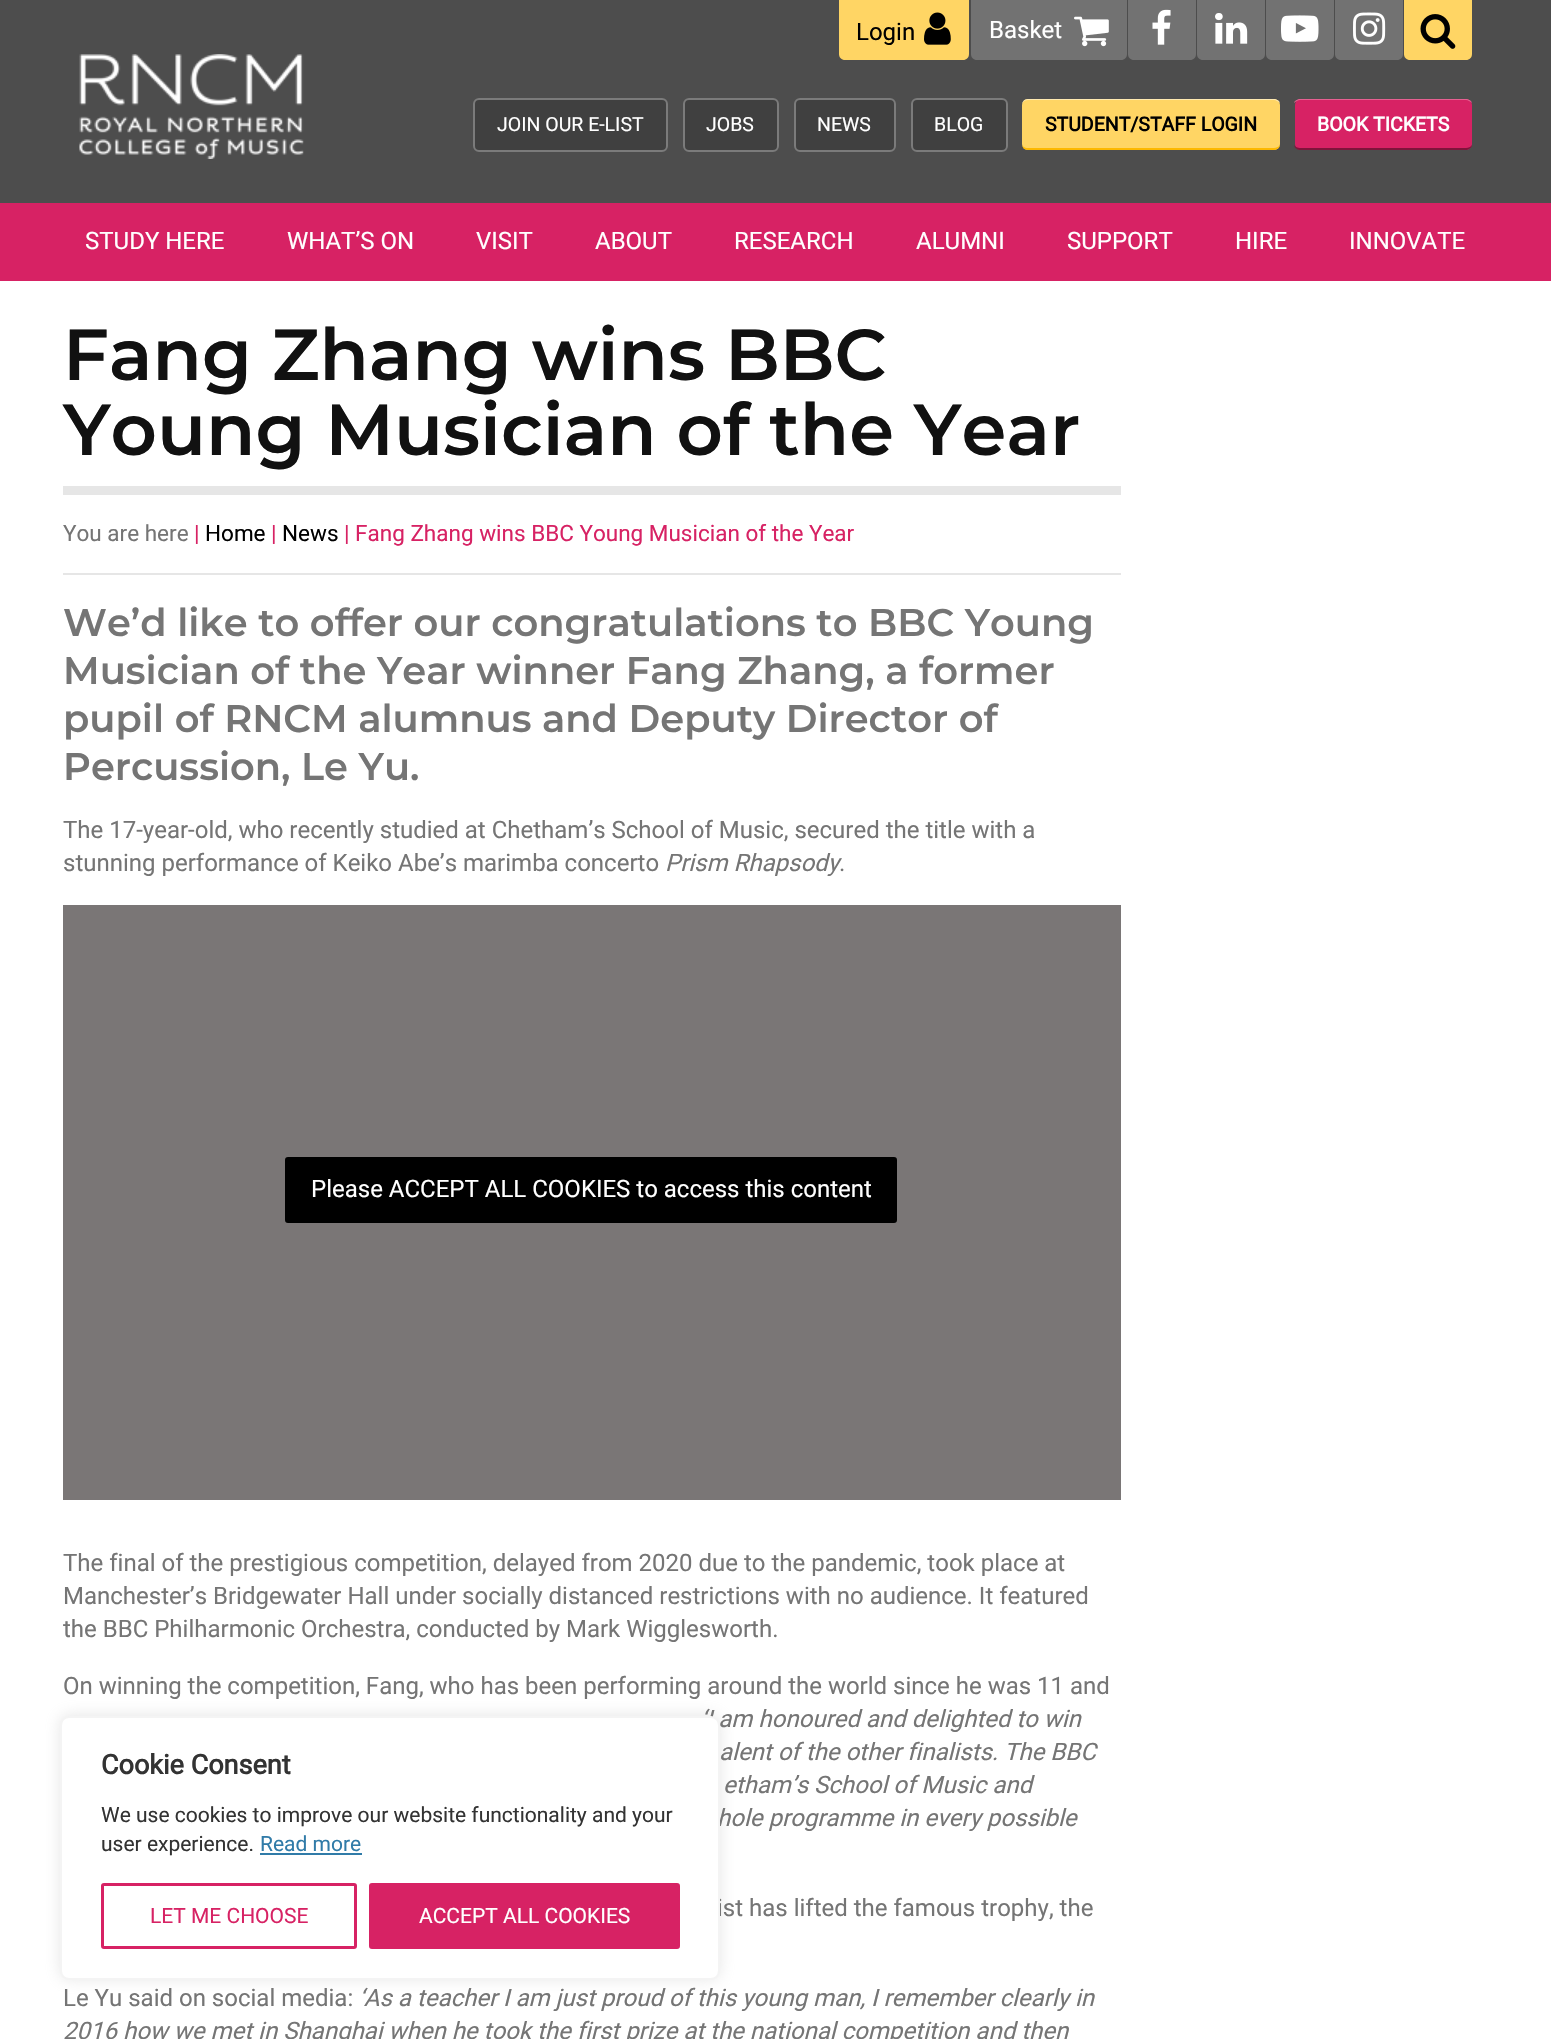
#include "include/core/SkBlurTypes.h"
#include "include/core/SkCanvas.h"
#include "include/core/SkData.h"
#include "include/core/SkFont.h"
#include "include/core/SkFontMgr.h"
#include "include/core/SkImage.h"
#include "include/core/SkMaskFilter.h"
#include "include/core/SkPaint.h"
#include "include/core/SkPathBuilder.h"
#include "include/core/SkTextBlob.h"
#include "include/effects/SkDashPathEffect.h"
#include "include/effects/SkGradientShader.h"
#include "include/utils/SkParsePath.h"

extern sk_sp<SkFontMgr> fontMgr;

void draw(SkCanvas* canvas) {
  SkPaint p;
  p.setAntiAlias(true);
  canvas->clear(SK_ColorWHITE);
  p.setColor(SkColorSetRGB(77, 77, 77));
  canvas->drawRect(SkRect::MakeLTRB(0, 0, 1551, 203), p);
  p.setColor(SkColorSetRGB(255, 213, 100));
  canvas->drawPath(SkPathBuilder().moveTo(839, 0).lineTo(969, 0).lineTo(969, 54).cubicTo(969, 57.5f, 966.5f, 60, 963, 60).lineTo(845, 60).cubicTo(841.5f, 60, 839, 57.5f, 839, 54).close().detach(), p);
  canvas->drawImageRect(SkImages::DeferredFromEncodedData(SkData::MakeFromFileName("images/1.png")), SkRect::MakeLTRB(924, 12, 951, 45), SkSamplingOptions());
  p.setColor(SkColorSetRGB(114, 114, 114));
  canvas->drawPath(SkPathBuilder().moveTo(971, 0).lineTo(1127, 0).lineTo(1127, 54).cubicTo(1127, 57.5f, 1124.5f, 60, 1121, 60).lineTo(977, 60).cubicTo(973.5f, 60, 971, 57.5f, 971, 54).close().detach(), p);
  canvas->drawImageRect(SkImages::DeferredFromEncodedData(SkData::MakeFromFileName("images/2.png")), SkRect::MakeLTRB(1074, 16, 1109, 47), SkSamplingOptions());
  canvas->drawPath(SkPathBuilder().moveTo(1128, 0).lineTo(1196, 0).lineTo(1196, 54).cubicTo(1196, 57.5f, 1193.5f, 60, 1190, 60).lineTo(1134, 60).cubicTo(1130.5f, 60, 1128, 57.5f, 1128, 54).close().detach(), p);
  canvas->drawImageRect(SkImages::DeferredFromEncodedData(SkData::MakeFromFileName("images/3.png")), SkRect::MakeLTRB(1152, 9, 1171, 45), SkSamplingOptions());
  canvas->drawPath(SkPathBuilder().moveTo(1197, 0).lineTo(1265, 0).lineTo(1265, 54).cubicTo(1265, 57.5f, 1262.5f, 60, 1259, 60).lineTo(1203, 60).cubicTo(1199.5f, 60, 1197, 57.5f, 1197, 54).close().detach(), p);
  canvas->drawImageRect(SkImages::DeferredFromEncodedData(SkData::MakeFromFileName("images/4.png")), SkRect::MakeLTRB(1215, 13, 1248, 44), SkSamplingOptions());
  canvas->drawPath(SkPathBuilder().moveTo(1266, 0).lineTo(1334, 0).lineTo(1334, 54).cubicTo(1334, 57.5f, 1331.5f, 60, 1328, 60).lineTo(1272, 60).cubicTo(1268.5f, 60, 1266, 57.5f, 1266, 54).close().detach(), p);
  canvas->drawImageRect(SkImages::DeferredFromEncodedData(SkData::MakeFromFileName("images/5.png")), SkRect::MakeLTRB(1281, 15, 1319, 42), SkSamplingOptions());
  canvas->drawPath(SkPathBuilder().moveTo(1335, 0).lineTo(1403, 0).lineTo(1403, 54).cubicTo(1403, 57.5f, 1400.5f, 60, 1397, 60).lineTo(1341, 60).cubicTo(1337.5f, 60, 1335, 57.5f, 1335, 54).close().detach(), p);
  canvas->drawImageRect(SkImages::DeferredFromEncodedData(SkData::MakeFromFileName("images/6.png")), SkRect::MakeLTRB(1353, 12, 1386, 45), SkSamplingOptions());
  p.setColor(SkColorSetRGB(255, 213, 100));
  canvas->drawPath(SkPathBuilder().moveTo(1404, 0).lineTo(1472, 0).lineTo(1472, 54).cubicTo(1472, 57.5f, 1469.5f, 60, 1466, 60).lineTo(1410, 60).cubicTo(1406.5f, 60, 1404, 57.5f, 1404, 54).close().detach(), p);
  canvas->drawImageRect(SkImages::DeferredFromEncodedData(SkData::MakeFromFileName("images/7.png")), SkRect::MakeLTRB(1420, 14, 1456, 49), SkSamplingOptions());
  canvas->drawImageRect(SkImages::DeferredFromEncodedData(SkData::MakeFromFileName("images/8.png")), SkRect::MakeLTRB(79, 54, 304, 159), SkSamplingOptions());
  p.setColor(SkColorSetRGB(64, 64, 64));
  canvas->drawRoundRect(SkRect::MakeLTRB(473, 98, 668, 152), 6, 6, p);
  p.setStyle(SkPaint::kStroke_Style);
  p.setStrokeWidth(2);
  p.setColor(SkColorSetARGB(102, 210, 210, 210));
  canvas->drawRoundRect(SkRect::MakeLTRB(474, 99, 667, 151), 5, 5, p);
  p.setStyle(SkPaint::kFill_Style);
  p.setColor(SkColorSetRGB(64, 64, 64));
  canvas->drawRoundRect(SkRect::MakeLTRB(683, 98, 779, 152), 6, 6, p);
  p.setStyle(SkPaint::kStroke_Style);
  p.setColor(SkColorSetARGB(102, 210, 210, 210));
  canvas->drawRoundRect(SkRect::MakeLTRB(684, 99, 778, 151), 5, 5, p);
  p.setStyle(SkPaint::kFill_Style);
  p.setColor(SkColorSetRGB(64, 64, 64));
  canvas->drawRoundRect(SkRect::MakeLTRB(794, 98, 896, 152), 6, 6, p);
  p.setStyle(SkPaint::kStroke_Style);
  p.setColor(SkColorSetARGB(102, 210, 210, 210));
  canvas->drawRoundRect(SkRect::MakeLTRB(795, 99, 895, 151), 5, 5, p);
  p.setStyle(SkPaint::kFill_Style);
  p.setColor(SkColorSetRGB(64, 64, 64));
  canvas->drawRoundRect(SkRect::MakeLTRB(911, 98, 1008, 152), 6, 6, p);
  p.setStyle(SkPaint::kStroke_Style);
  p.setColor(SkColorSetARGB(102, 210, 210, 210));
  canvas->drawRoundRect(SkRect::MakeLTRB(912, 99, 1007, 151), 5, 5, p);
  p.setStyle(SkPaint::kFill_Style);
  p.setColor(SkColorSetRGB(255, 213, 100));
  canvas->drawRoundRect(SkRect::MakeLTRB(1022, 99, 1280, 150), 6, 6, p);
  p.setColor(SkColorSetRGB(255, 234, 177));
  canvas->drawPath(SkPathBuilder().moveTo(1028, 99).lineTo(1274, 99).cubicTo(1276, 99, 1280, 101, 1280, 103).cubicTo(1279, 102, 1276, 100, 1274, 100).lineTo(1028, 100).cubicTo(1024, 100, 1022, 103, 1022, 105).cubicTo(1022, 102, 1024, 99, 1028, 99).close().detach(), p);
  p.setColor(SkColorSetRGB(253, 184, 0));
  canvas->drawPath(SkPathBuilder().moveTo(1028, 150).lineTo(1274, 150).cubicTo(1276, 150, 1280, 148, 1280, 145).cubicTo(1279, 147, 1276, 148, 1274, 148).lineTo(1028, 148).cubicTo(1024, 148, 1022, 146, 1022, 144).cubicTo(1022, 147, 1024, 150, 1028, 150).close().detach(), p);
  p.setColor(SkColorSetRGB(215, 34, 100));
  canvas->drawRoundRect(SkRect::MakeLTRB(1295, 99, 1472, 150), 6, 6, p);
  p.setColor(SkColorSetRGB(230, 96, 145));
  canvas->drawPath(SkPathBuilder().moveTo(1300, 99).cubicTo(1298, 99, 1294, 101, 1294, 103).cubicTo(1295, 102, 1298, 100, 1300, 100).lineTo(1466, 100).cubicTo(1468, 100, 1471, 102, 1472, 103).cubicTo(1472, 101, 1468, 99, 1466, 99).close().detach(), p);
  p.setColor(SkColorSetRGB(127, 20, 59));
  canvas->drawPath(SkPathBuilder().moveTo(1300, 150).lineTo(1466, 150).cubicTo(1468, 150, 1472, 148, 1472, 145).cubicTo(1471, 147, 1468, 148, 1466, 148).lineTo(1300, 148).cubicTo(1298, 148, 1295, 147, 1294, 145).cubicTo(1294, 148, 1298, 150, 1300, 150).close().detach(), p);
  p.setColor(SkColorSetRGB(215, 34, 100));
  canvas->drawRect(SkRect::MakeLTRB(0, 203, 1551, 281), p);
  p.setColor(SkColorSetRGB(230, 230, 230));
  canvas->drawRect(SkRect::MakeLTRB(63, 573, 1121, 575), p);
  canvas->drawRect(SkRect::MakeLTRB(63, 486, 1121, 495), p);
  p.setColor(SkColorSetRGB(122, 118, 118));
  canvas->drawRect(SkRect::MakeLTRB(63, 905, 1121, 1500), p);
  p.setColor(SK_ColorBLACK);
  canvas->drawRoundRect(SkRect::MakeLTRB(286, 1158, 896, 1222), 2, 2, p);
  p.setStyle(SkPaint::kStroke_Style);
  canvas->drawRoundRect(SkRect::MakeLTRB(286, 1158, 896, 1222), 2, 2, p);
  p.setStyle(SkPaint::kFill_Style);
  p.setColor(SkColorSetARGB(77, 172, 171, 171));
  p.setMaskFilter(SkMaskFilter::MakeBlur(kNormal_SkBlurStyle, 7.5f));
  canvas->drawRoundRect(SkRect::MakeLTRB(60, 1715, 720, 1979), 9, 9, p);
  p.setMaskFilter(nullptr);
  SkFont font1(fontMgr->matchFamilyStyle("Roboto", SkFontStyle::Normal()), 24);
  font1.setSubpixel(true);
  p.setColor(SK_ColorBLACK);
  canvas->drawString("Login", 856, 40, font1, p);
  p.setColor(SK_ColorWHITE);
  canvas->drawString("Basket", 989, 38, font1, p);
  SkFont font2(fontMgr->matchFamilyStyle("Roboto", SkFontStyle::Normal()), 19.5f);
  font2.setSubpixel(true);
  canvas->drawString("JOIN OUR E-LIST", 497, 131, font2, p);
  canvas->drawString("JOBS", 706, 131, font2, p);
  canvas->drawString("NEWS", 817, 131, font2, p);
  canvas->drawString("BLOG", 934, 131, font2, p);
  SkFont font3(fontMgr->matchFamilyStyle("Roboto", SkFontStyle::Bold()), 19.5f);
  font3.setSubpixel(true);
  p.setColor(SK_ColorBLACK);
  canvas->drawString("STUDENT/STAFF LOGIN", 1045, 131, font3, p);
  p.setColor(SK_ColorWHITE);
  canvas->drawString("BOOK TICKETS", 1317, 131, font3, p);
  canvas->drawString("STUDY HERE", 85, 249, font1, p);
  canvas->drawString("WHAT’S ON", 287, 249, font1, p);
  canvas->drawString("VISIT", 476, 249, font1, p);
  canvas->drawString("ABOUT", 595, 249, font1, p);
  canvas->drawString("RESEARCH", 734, 249, font1, p);
  canvas->drawString("ALUMNI", 916, 249, font1, p);
  canvas->drawString("SUPPORT", 1067, 249, font1, p);
  canvas->drawString("HIRE", 1235, 249, font1, p);
  canvas->drawString("INNOVATE", 1349, 249, font1, p);
  SkFont font4(fontMgr->matchFamilyStyle("Montserrat", SkFontStyle(600, SkFontStyle::kNormal_Width, SkFontStyle::kUpright_Slant)), 72);
  font4.setSubpixel(true);
  p.setColor(SkColorSetRGB(17, 17, 17));
  canvas->drawString("Fang Zhang wins BBC", 63, 380, font4, p);
  canvas->drawString("Young Musician of the Year", 63, 455, font4, p);
  SkFont font5(fontMgr->matchFamilyStyle("Roboto", SkFontStyle::Normal()), 22.5f);
  font5.setSubpixel(true);
  p.setColor(SkColorSetRGB(117, 117, 117));
  canvas->drawString("You are here", 63, 541, font5, p);
  p.setColor(SkColorSetRGB(215, 34, 100));
  canvas->drawString("|", 194, 541, font5, p);
  p.setColor(SK_ColorBLACK);
  canvas->drawString("Home", 205, 541, font5, p);
  p.setColor(SkColorSetRGB(215, 34, 100));
  canvas->drawString("|", 271, 541, font5, p);
  p.setColor(SK_ColorBLACK);
  canvas->drawString("News", 282, 541, font5, p);
  p.setColor(SkColorSetRGB(215, 34, 100));
  canvas->drawString("| Fang Zhang wins BBC Young Musician of the Year", 344, 541, font5, p);
  SkFont font6(fontMgr->matchFamilyStyle("Montserrat", SkFontStyle(600, SkFontStyle::kNormal_Width, SkFontStyle::kUpright_Slant)), 38.4f);
  font6.setSubpixel(true);
  p.setColor(SkColorSetRGB(117, 117, 117));
  canvas->drawString("We’d like to offer our congratulations to BBC Young", 63, 636, font6, p);
  canvas->drawString("Musician of the Year winner Fang Zhang, a former", 63, 684, font6, p);
  canvas->drawString("pupil of RNCM alumnus and Deputy Director of", 63, 732, font6, p);
  canvas->drawString("Percussion, Le Yu.", 63, 780, font6, p);
  canvas->drawString("The 17-year-old, who recently studied at Chetham’s School of Music, secured the title with a", 63, 838, font1, p);
  canvas->drawString("stunning performance of Keiko Abe’s marimba concerto", 63, 871, font1, p);
  SkFont font7(fontMgr->matchFamilyStyle("Roboto", SkFontStyle::Italic()), 24);
  font7.setSubpixel(true);
  canvas->drawString("Prism Rhapsody", 665, 871, font7, p);
  canvas->drawString(".", 839, 871, font1, p);
  p.setColor(SK_ColorWHITE);
  canvas->drawString("Please ACCEPT ALL COOKIES to access this content", 311, 1197, font1, p);
  p.setColor(SkColorSetRGB(117, 117, 117));
  canvas->drawString("The final of the prestigious competition, delayed from 2020 due to the pandemic, took place at", 63, 1571, font1, p);
  canvas->drawString("Manchester’s Bridgewater Hall under socially distanced restrictions with no audience. It featured", 63, 1604, font1, p);
  canvas->drawString("the BBC Philharmonic Orchestra, conducted by Mark Wigglesworth.", 63, 1637, font1, p);
  canvas->drawString("On winning the competition, Fang, who has been performing around the world since he was 11 and", 63, 1694, font1, p);
  canvas->drawString("‘I am honoured and delighted to win", 701, 1727, font7, p);
  canvas->drawString("alent of the other finalists. The BBC", 719, 1760, font7, p);
  canvas->drawString("etham’s School of Music and", 723, 1793, font7, p);
  canvas->drawString("hole programme in every possible", 717, 1826, font7, p);
  canvas->drawString("ist has lifted the famous trophy, the", 717, 1916, font1, p);
  canvas->drawString("Le Yu said on social media:", 63, 2006, font1, p);
  canvas->drawString("‘As a teacher I am just proud of this young man, I remember clearly in", 359, 2006, font7, p);
  canvas->drawString("2016 how we met in Shanghai when he took the first prize at the national competition and then", 63, 2039, font7, p);
  p.setColor(SK_ColorWHITE);
  canvas->drawRoundRect(SkRect::MakeLTRB(61, 1717, 719, 1979), 8, 8, p);
  p.setStyle(SkPaint::kStroke_Style);
  p.setColor(SkColorSetRGB(244, 244, 244));
  canvas->drawRoundRect(SkRect::MakeLTRB(61, 1717, 719, 1979), 8, 8, p);
  SkFont font8(fontMgr->matchFamilyStyle("Roboto", SkFontStyle::Bold()), 27);
  font8.setSubpixel(true);
  p.setStyle(SkPaint::kFill_Style);
  p.setColor(SkColorSetRGB(51, 51, 51));
  canvas->drawString("Cookie Consent", 101, 1774, font8, p);
  SkFont font9(fontMgr->matchFamilyStyle("Roboto", SkFontStyle::Normal()), 21);
  font9.setSubpixel(true);
  canvas->drawString("We use cookies to improve our website functionality and your", 101, 1822, font9, p);
  canvas->drawString("user experience.", 101, 1851, font9, p);
  p.setColor(SkColorSetRGB(48, 123, 168));
  canvas->drawString("Read more", 260, 1851, font9, p);
  canvas->drawRect(SkRect::MakeLTRB(260, 1853, 362, 1855), p);
  p.setStyle(SkPaint::kStroke_Style);
  p.setStrokeWidth(3);
  p.setColor(SkColorSetRGB(215, 34, 100));
  canvas->drawRoundRect(SkRect::MakeLTRB(102.5f, 1884.5f, 355.5f, 1947.5f), 1.5f, 1.5f, p);
  p.setStyle(SkPaint::kFill_Style);
  canvas->drawString("LET ME CHOOSE", 150, 1923, font9, p);
  canvas->drawRoundRect(SkRect::MakeLTRB(370.5f, 1884.5f, 678.5f, 1947.5f), 1.5f, 1.5f, p);
  p.setStyle(SkPaint::kStroke_Style);
  canvas->drawRoundRect(SkRect::MakeLTRB(370.5f, 1884.5f, 678.5f, 1947.5f), 1.5f, 1.5f, p);
  p.setStyle(SkPaint::kFill_Style);
  p.setColor(SK_ColorWHITE);
  canvas->drawString("ACCEPT ALL COOKIES", 419, 1923, font9, p);
}
